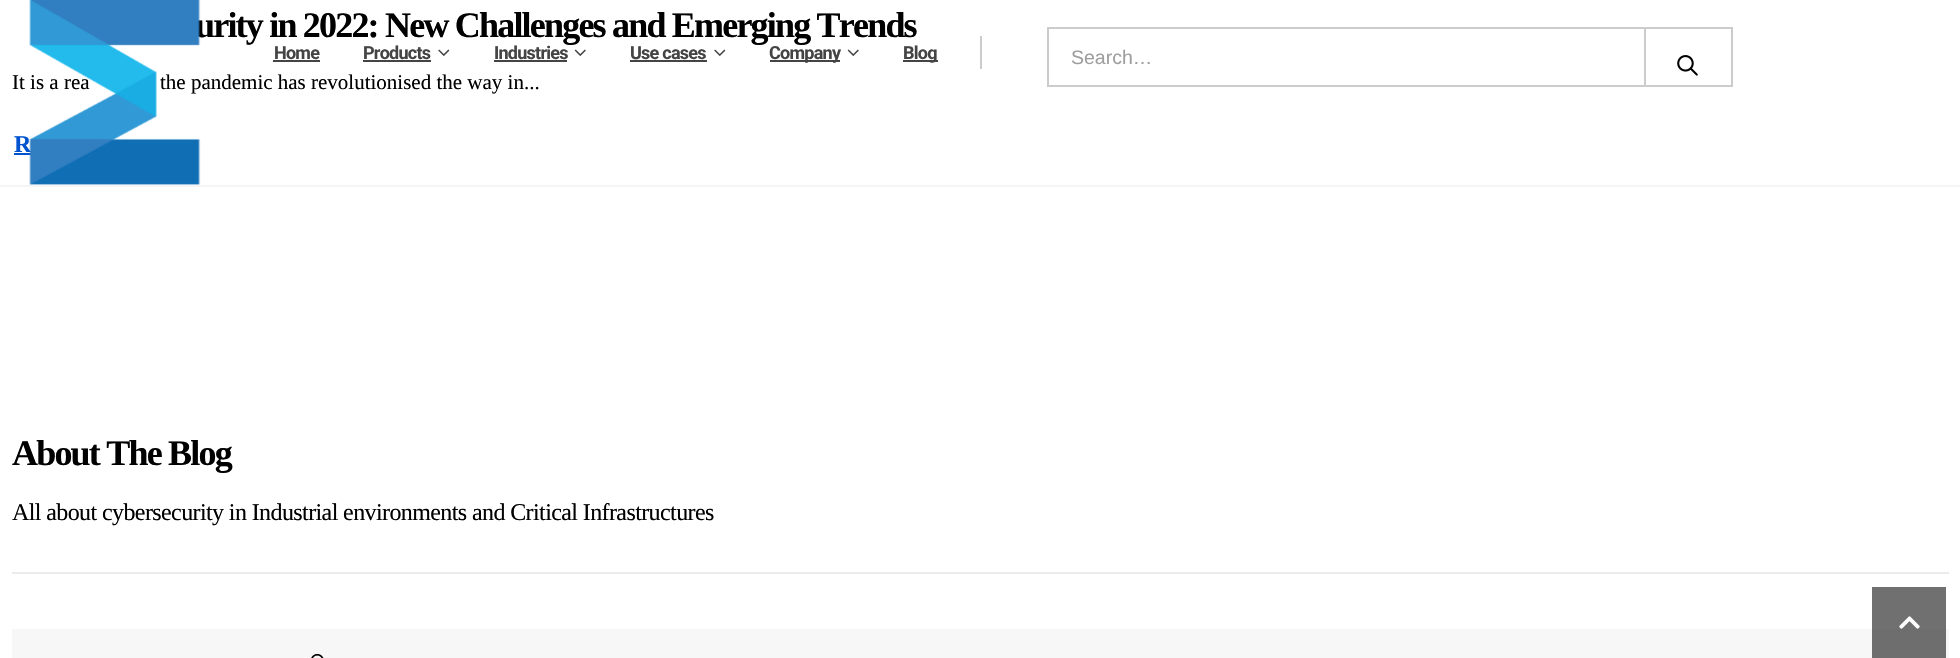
#include "include/core/SkBlurTypes.h"
#include "include/core/SkCanvas.h"
#include "include/core/SkData.h"
#include "include/core/SkFont.h"
#include "include/core/SkFontMgr.h"
#include "include/core/SkImage.h"
#include "include/core/SkMaskFilter.h"
#include "include/core/SkPaint.h"
#include "include/core/SkPathBuilder.h"
#include "include/core/SkTextBlob.h"
#include "include/effects/SkDashPathEffect.h"
#include "include/effects/SkGradientShader.h"
#include "include/utils/SkParsePath.h"

extern sk_sp<SkFontMgr> fontMgr;

void draw(SkCanvas* canvas) {
  SkPaint p;
  p.setAntiAlias(true);
  auto spacedText = [&](const char* s, float x, float y, const SkFont& font, const SkPaint& ink, float letter, float word) {
    std::vector<SkGlyphID> glyphs(font.countText(s, strlen(s), SkTextEncoding::kUTF8));
    std::vector<float> xs(glyphs.size());
    font.textToGlyphs(s, strlen(s), SkTextEncoding::kUTF8, glyphs);
    font.getXPos(glyphs, xs, x);
    float extra = 0;
    for (size_t i = 0; i < glyphs.size(); i++) {
      xs[i] += extra;
      extra += letter + word * (glyphs[i] == font.unicharToGlyph(' '));
    }
    canvas->drawTextBlob(SkTextBlob::MakeFromPosHGlyphs(glyphs, xs, y, font), 0, 0, ink);
  };
  canvas->clear(SK_ColorWHITE);
  p.setColor(SkColorSetRGB(112, 112, 112));
  canvas->drawRect(SkRect::MakeLTRB(1872, 587, 1946, 629), p);
  p.setColor(SkColorSetRGB(0, 83, 206));
  canvas->drawRect(SkRect::MakeLTRB(14, 153, 31, 155), p);
  p.setColor(SkColorSetRGB(235, 235, 235));
  canvas->drawRect(SkRect::MakeLTRB(12, 572, 1949, 574), p);
  p.setColor(SkColorSetRGB(247, 247, 247));
  canvas->drawRect(SkRect::MakeLTRB(12, 629, 1949, 658), p);
  p.setColor(SkColorSetRGB(110, 110, 110));
  canvas->drawRect(SkRect::MakeLTRB(1872, 629, 1946, 658), p);
  canvas->drawImageRect(SkImages::DeferredFromEncodedData(SkData::MakeFromFileName("images/1.png")), SkRect::MakeLTRB(311, 653, 324, 658), SkSamplingOptions());
  p.setColor(SkColorSetRGB(245, 245, 245));
  canvas->drawRect(SkRect::MakeLTRB(0, 185, 1960, 187), p);
  p.setColor(SkColorSetRGB(68, 68, 68));
  canvas->drawRect(SkRect::MakeLTRB(273, 60, 320, 62), p);
  canvas->drawRect(SkRect::MakeLTRB(363, 60, 431, 62), p);
  canvas->drawImageRect(SkImages::DeferredFromEncodedData(SkData::MakeFromFileName("images/3.png")), SkRect::MakeLTRB(438, 49, 450, 56), SkSamplingOptions());
  canvas->drawRect(SkRect::MakeLTRB(494, 60, 567, 62), p);
  canvas->drawImageRect(SkImages::DeferredFromEncodedData(SkData::MakeFromFileName("images/4.png")), SkRect::MakeLTRB(574, 49, 586, 56), SkSamplingOptions());
  canvas->drawRect(SkRect::MakeLTRB(630, 60, 707, 62), p);
  canvas->drawImageRect(SkImages::DeferredFromEncodedData(SkData::MakeFromFileName("images/3.png")), SkRect::MakeLTRB(714, 49, 726, 56), SkSamplingOptions());
  canvas->drawRect(SkRect::MakeLTRB(770, 60, 840, 62), p);
  canvas->drawImageRect(SkImages::DeferredFromEncodedData(SkData::MakeFromFileName("images/4.png")), SkRect::MakeLTRB(847, 49, 859, 56), SkSamplingOptions());
  canvas->drawRect(SkRect::MakeLTRB(903, 60, 938, 62), p);
  p.setColor(SkColorSetRGB(204, 204, 204));
  canvas->drawRect(SkRect::MakeLTRB(980, 36, 982, 69), p);
  p.setStyle(SkPaint::kStroke_Style);
  p.setStrokeWidth(2);
  canvas->drawRect(SkRect::MakeLTRB(1048, 28, 1732, 86), p);
  p.setStyle(SkPaint::kFill_Style);
  canvas->drawRect(SkRect::MakeLTRB(1644, 29, 1646, 86), p);
  canvas->drawImageRect(SkImages::DeferredFromEncodedData(SkData::MakeFromFileName("images/5.png")), SkRect::MakeLTRB(1677, 55, 1698, 76), SkSamplingOptions());
  canvas->drawImageRect(SkImages::DeferredFromEncodedData(SkData::MakeFromFileName("images/6.png")), SkRect::MakeLTRB(1899, 616, 1920, 629), SkSamplingOptions());
  SkFont font1(fontMgr->matchFamilyStyle("Liberation Serif", SkFontStyle::Bold()), 36);
  font1.setSubpixel(true);
  p.setColor(SK_ColorBLACK);
  spacedText("urity in 2022: New Challenges and Emerging Trends", 195, 37, font1, p, -1.8f, 0);
  SkFont font2(fontMgr->matchFamilyStyle("Liberation Serif", SkFontStyle::Normal()), 21);
  font2.setSubpixel(true);
  canvas->drawString("It is a rea", 12, 89, font2, p);
  canvas->drawString("the pandemic has revolutionised the way in...", 160, 89, font2, p);
  SkFont font3(fontMgr->matchFamilyStyle("Liberation Serif", SkFontStyle::Bold()), 24);
  font3.setSubpixel(true);
  p.setColor(SkColorSetRGB(0, 83, 206));
  canvas->drawString("R", 14, 152, font3, p);
  p.setColor(SK_ColorBLACK);
  spacedText("About The Blog", 12, 465, font1, p, -1.8f, 0);
  SkFont font4(fontMgr->matchFamilyStyle("Liberation Serif", SkFontStyle::Normal()), 24);
  font4.setSubpixel(true);
  spacedText("All about cybersecurity in Industrial environments and Critical Infrastructures", 12, 520, font4, p, -0.6f, 0);
  canvas->drawImageRect(SkImages::DeferredFromEncodedData(SkData::MakeFromFileName("images/2.png")), SkRect::MakeLTRB(29, 0, 201, 185), SkSamplingOptions());
  SkFont font5(fontMgr->matchFamilyStyle("Roboto", SkFontStyle::Bold()), 18);
  font5.setSubpixel(true);
  p.setColor(SkColorSetRGB(68, 68, 68));
  spacedText("Home", 274, 59, font5, p, -0.75f, 0);
  spacedText("Products", 363, 59, font5, p, -0.75f, 0);
  spacedText("Industries", 494, 59, font5, p, -0.75f, 0);
  spacedText("Use cases", 630, 59, font5, p, -0.75f, 0);
  spacedText("Company", 769, 59, font5, p, -0.75f, 0);
  spacedText("Blog", 903, 59, font5, p, -0.75f, 0);
  SkFont font6(fontMgr->matchFamilyStyle("Liberation Sans", SkFontStyle::Normal()), 19.5f);
  font6.setSubpixel(true);
  p.setColor(SkColorSetRGB(158, 158, 158));
  canvas->drawString("Search…", 1071, 64, font6, p);
}
